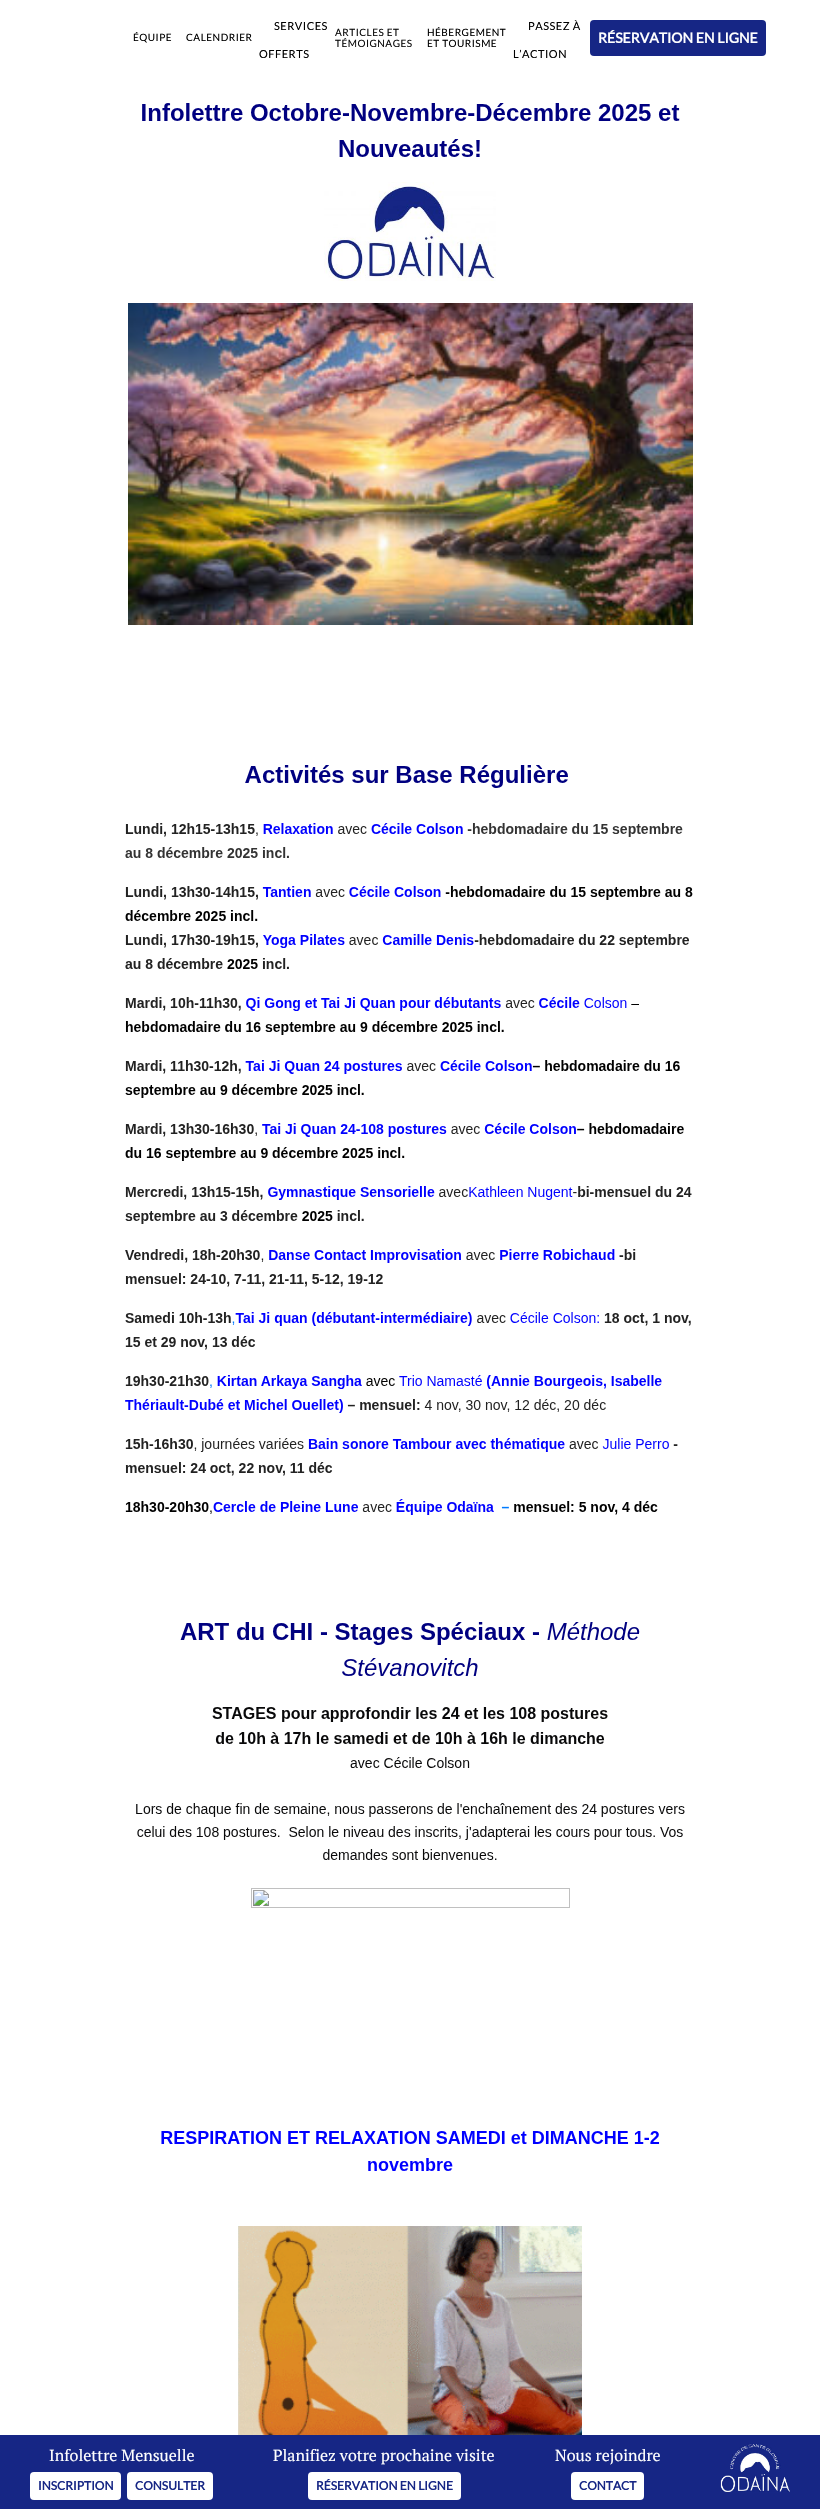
#include "include/core/SkBlurTypes.h"
#include "include/core/SkCanvas.h"
#include "include/core/SkData.h"
#include "include/core/SkFont.h"
#include "include/core/SkFontMgr.h"
#include "include/core/SkImage.h"
#include "include/core/SkMaskFilter.h"
#include "include/core/SkPaint.h"
#include "include/core/SkPathBuilder.h"
#include "include/core/SkTextBlob.h"
#include "include/effects/SkDashPathEffect.h"
#include "include/effects/SkGradientShader.h"
#include "include/utils/SkParsePath.h"

extern sk_sp<SkFontMgr> fontMgr;

void draw(SkCanvas* canvas) {
  SkPaint p;
  p.setAntiAlias(true);
  auto spacedText = [&](const char* s, float x, float y, const SkFont& font, const SkPaint& ink, float letter, float word) {
    std::vector<SkGlyphID> glyphs(font.countText(s, strlen(s), SkTextEncoding::kUTF8));
    std::vector<float> xs(glyphs.size());
    font.textToGlyphs(s, strlen(s), SkTextEncoding::kUTF8, glyphs);
    font.getXPos(glyphs, xs, x);
    float extra = 0;
    for (size_t i = 0; i < glyphs.size(); i++) {
      xs[i] += extra;
      extra += letter + word * (glyphs[i] == font.unicharToGlyph(' '));
    }
    canvas->drawTextBlob(SkTextBlob::MakeFromPosHGlyphs(glyphs, xs, y, font), 0, 0, ink);
  };
  canvas->clear(SK_ColorWHITE);
  p.setColor(SkColorSetRGB(22, 38, 133));
  canvas->drawRoundRect(SkRect::MakeLTRB(590, 20, 766, 56), 4, 4, p);
  canvas->drawImageRect(SkImages::DeferredFromEncodedData(SkData::MakeFromFileName("images/1.png")), SkRect::MakeLTRB(125, 103, 693, 2435), SkSamplingOptions());
  canvas->drawRect(SkRect::MakeLTRB(0, 2435, 820, 2509), p);
  p.setColor(SK_ColorWHITE);
  canvas->drawRoundRect(SkRect::MakeLTRB(30, 2472, 121, 2500), 4, 4, p);
  canvas->drawRoundRect(SkRect::MakeLTRB(127, 2472, 213, 2500), 4, 4, p);
  canvas->drawRoundRect(SkRect::MakeLTRB(308, 2472, 461, 2500), 4, 4, p);
  canvas->drawRoundRect(SkRect::MakeLTRB(571, 2472, 644, 2500), 4, 4, p);
  canvas->drawImageRect(SkImages::DeferredFromEncodedData(SkData::MakeFromFileName("images/2.png")), SkRect::MakeLTRB(720, 2443, 790, 2493), SkSamplingOptions());
  SkFont font1(fontMgr->matchFamilyStyle("Lato", SkFontStyle::Normal()), 10);
  font1.setSubpixel(true);
  p.setColor(SK_ColorBLACK);
  spacedText("ÉQUIPE", 133, 41, font1, p, 0.5f, 0);
  spacedText("CALENDRIER", 186, 41, font1, p, 0.5f, 0);
  SkFont font2(fontMgr->matchFamilyStyle("Lato", SkFontStyle::Normal()), 11);
  font2.setSubpixel(true);
  spacedText("SERVICES", 274, 30, font2, p, 0.5f, 0);
  spacedText("OFFERTS", 259, 58, font2, p, 0.5f, 0);
  p.setColor(SkColorSetRGB(10, 10, 10));
  spacedText("ARTICLES ET", 335, 36, font1, p, 0.5f, 0);
  spacedText("TÉMOIGNAGES", 335, 47, font1, p, 0.5f, 0);
  p.setColor(SK_ColorBLACK);
  spacedText("HÉBERGEMENT", 427, 36, font1, p, 0.5f, 0);
  spacedText("ET TOURISME", 427, 47, font1, p, 0.5f, 0);
  spacedText("PASSEZ À", 528, 30, font2, p, 0.5f, 0);
  spacedText("L’ACTION", 513, 58, font2, p, 0.5f, 0);
  SkFont font3(fontMgr->matchFamilyStyle("Lato", SkFontStyle::Bold()), 14);
  font3.setSubpixel(true);
  p.setColor(SK_ColorWHITE);
  canvas->drawString("RÉSERVATION EN LIGNE", 598, 43, font3, p);
  SkFont font4(fontMgr->matchFamilyStyle("PT Serif", SkFontStyle::Normal()), 16);
  font4.setSubpixel(true);
  canvas->drawString("Infolettre Mensuelle", 49, 2461, font4, p);
  SkFont font5(fontMgr->matchFamilyStyle("Lato", SkFontStyle::Bold()), 12);
  font5.setSubpixel(true);
  p.setColor(SkColorSetRGB(22, 38, 133));
  canvas->drawString("INSCRIPTION", 38, 2490, font5, p);
  canvas->drawString("CONSULTER", 135, 2490, font5, p);
  p.setColor(SK_ColorWHITE);
  canvas->drawString("Planifiez votre prochaine visite", 273, 2461, font4, p);
  p.setColor(SkColorSetRGB(22, 38, 133));
  canvas->drawString("RÉSERVATION EN LIGNE", 316, 2490, font5, p);
  p.setColor(SK_ColorWHITE);
  canvas->drawString("Nous rejoindre", 555, 2461, font4, p);
  p.setColor(SkColorSetRGB(22, 38, 133));
  canvas->drawString("CONTACT", 579, 2490, font5, p);
}
